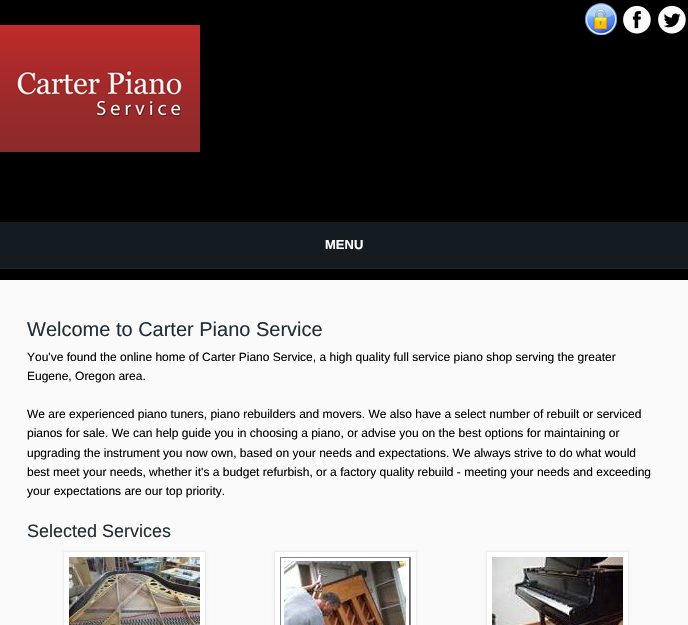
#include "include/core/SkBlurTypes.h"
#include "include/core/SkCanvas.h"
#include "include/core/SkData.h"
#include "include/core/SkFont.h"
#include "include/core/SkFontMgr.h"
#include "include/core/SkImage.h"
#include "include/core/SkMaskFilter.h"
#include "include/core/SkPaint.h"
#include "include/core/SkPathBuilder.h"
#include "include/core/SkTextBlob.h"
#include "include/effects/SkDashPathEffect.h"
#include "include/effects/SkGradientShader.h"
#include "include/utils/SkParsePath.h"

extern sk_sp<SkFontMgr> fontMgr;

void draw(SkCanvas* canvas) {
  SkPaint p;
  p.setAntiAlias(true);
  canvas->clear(SK_ColorBLACK);
  canvas->drawImageRect(SkImages::DeferredFromEncodedData(SkData::MakeFromFileName("images/1.png")), SkRect::MakeLTRB(585, 3, 617, 35), SkSamplingOptions());
  canvas->drawImageRect(SkImages::DeferredFromEncodedData(SkData::MakeFromFileName("images/2.png")), SkRect::MakeLTRB(623, 5, 651, 34), SkSamplingOptions());
  canvas->drawImageRect(SkImages::DeferredFromEncodedData(SkData::MakeFromFileName("images/3.png")), SkRect::MakeLTRB(658, 5, 686, 34), SkSamplingOptions());
  canvas->drawImageRect(SkImages::DeferredFromEncodedData(SkData::MakeFromFileName("images/4.png")), SkRect::MakeLTRB(0, 25, 200, 152), SkSamplingOptions());
  p.setColor(SkColorSetRGB(20, 27, 33));
  canvas->drawRect(SkRect::MakeLTRB(0, 222, 688, 268), p);
  p.setColor(SkColorSetRGB(30, 38, 45));
  canvas->drawRect(SkRect::MakeLTRB(0, 268, 688, 269), p);
  p.setColor(SkColorSetRGB(250, 250, 250));
  canvas->drawRect(SkRect::MakeLTRB(0, 280, 688, 625), p);
  p.setColor(SkColorSetRGB(238, 238, 238));
  p.setMaskFilter(SkMaskFilter::MakeBlur(kNormal_SkBlurStyle, 1.5f));
  canvas->drawRect(SkRect::MakeLTRB(63, 551, 206, 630), p);
  p.setMaskFilter(nullptr);
  p.setColor(SK_ColorWHITE);
  canvas->drawRect(SkRect::MakeLTRB(63.5f, 551.5f, 205.5f, 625.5f), p);
  p.setStyle(SkPaint::kStroke_Style);
  p.setStrokeWidth(1);
  p.setColor(SkColorSetRGB(238, 238, 238));
  canvas->drawRect(SkRect::MakeLTRB(63.5f, 551.5f, 205.5f, 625.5f), p);
  canvas->drawImageRect(SkImages::DeferredFromEncodedData(SkData::MakeFromFileName("images/5.png")), SkRect::MakeLTRB(69, 557, 200, 625), SkSamplingOptions());
  p.setStyle(SkPaint::kFill_Style);
  p.setMaskFilter(SkMaskFilter::MakeBlur(kNormal_SkBlurStyle, 1.5f));
  canvas->drawRect(SkRect::MakeLTRB(274, 551, 417, 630), p);
  p.setMaskFilter(nullptr);
  p.setColor(SK_ColorWHITE);
  canvas->drawRect(SkRect::MakeLTRB(274.5f, 551.5f, 416.5f, 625.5f), p);
  p.setStyle(SkPaint::kStroke_Style);
  p.setColor(SkColorSetRGB(238, 238, 238));
  canvas->drawRect(SkRect::MakeLTRB(274.5f, 551.5f, 416.5f, 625.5f), p);
  canvas->drawImageRect(SkImages::DeferredFromEncodedData(SkData::MakeFromFileName("images/6.png")), SkRect::MakeLTRB(280, 557, 411, 625), SkSamplingOptions());
  p.setStyle(SkPaint::kFill_Style);
  p.setMaskFilter(SkMaskFilter::MakeBlur(kNormal_SkBlurStyle, 1.5f));
  canvas->drawRect(SkRect::MakeLTRB(486, 551, 629, 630), p);
  p.setMaskFilter(nullptr);
  p.setColor(SK_ColorWHITE);
  canvas->drawRect(SkRect::MakeLTRB(486.5f, 551.5f, 628.5f, 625.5f), p);
  p.setStyle(SkPaint::kStroke_Style);
  p.setColor(SkColorSetRGB(238, 238, 238));
  canvas->drawRect(SkRect::MakeLTRB(486.5f, 551.5f, 628.5f, 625.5f), p);
  canvas->drawImageRect(SkImages::DeferredFromEncodedData(SkData::MakeFromFileName("images/7.png")), SkRect::MakeLTRB(492, 557, 623, 625), SkSamplingOptions());
  SkFont font1(fontMgr->matchFamilyStyle("Liberation Sans", SkFontStyle::Bold()), 13);
  font1.setSubpixel(true);
  p.setStyle(SkPaint::kFill_Style);
  p.setColor(SK_ColorWHITE);
  canvas->drawString("MENU", 325, 249, font1, p);
  SkFont font2(fontMgr->matchFamilyStyle("Liberation Sans", SkFontStyle::Normal()), 20);
  font2.setSubpixel(true);
  p.setColor(SkColorSetRGB(34, 46, 54));
  canvas->drawString("Welcome to Carter Piano Service", 27, 336, font2, p);
  SkFont font3(fontMgr->matchFamilyStyle("Liberation Sans", SkFontStyle::Normal()), 12);
  font3.setSubpixel(true);
  p.setColor(SK_ColorBLACK);
  canvas->drawString("You've found the online home of Carter Piano Service, a high quality full service piano shop serving the greater", 27, 361, font3, p);
  canvas->drawString("Eugene, Oregon area.", 27, 380, font3, p);
  canvas->drawString("We are experienced piano tuners, piano rebuilders and movers. We also have a select number of rebuilt or serviced", 27, 418, font3, p);
  canvas->drawString("pianos for sale. We can help guide you in choosing a piano, or advise you on the best options for maintaining or", 27, 437, font3, p);
  canvas->drawString("upgrading the instrument you now own, based on your needs and expectations. We always strive to do what would", 27, 457, font3, p);
  canvas->drawString("best meet your needs, whether it's a budget refurbish, or a factory quality rebuild - meeting your needs and exceeding", 27, 476, font3, p);
  canvas->drawString("your expectations are our top priority.", 27, 495, font3, p);
  SkFont font4(fontMgr->matchFamilyStyle("Liberation Sans", SkFontStyle::Normal()), 18);
  font4.setSubpixel(true);
  p.setColor(SkColorSetRGB(34, 46, 54));
  canvas->drawString("Selected Services", 27, 537, font4, p);
}
